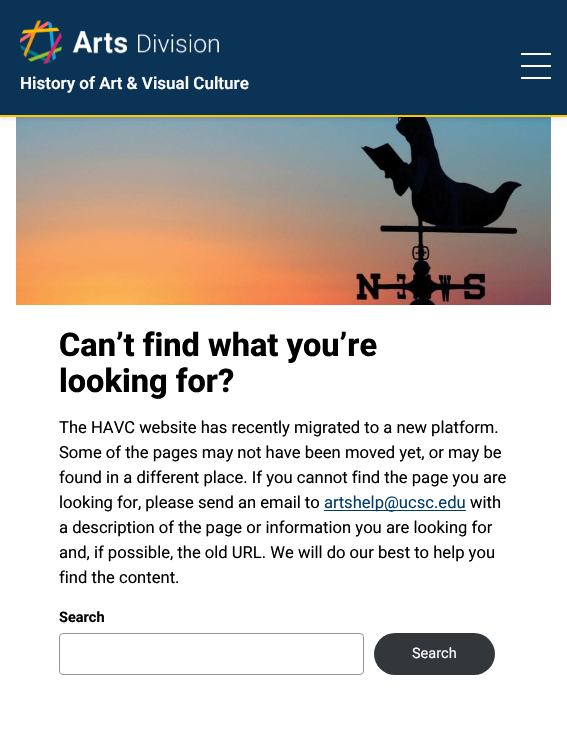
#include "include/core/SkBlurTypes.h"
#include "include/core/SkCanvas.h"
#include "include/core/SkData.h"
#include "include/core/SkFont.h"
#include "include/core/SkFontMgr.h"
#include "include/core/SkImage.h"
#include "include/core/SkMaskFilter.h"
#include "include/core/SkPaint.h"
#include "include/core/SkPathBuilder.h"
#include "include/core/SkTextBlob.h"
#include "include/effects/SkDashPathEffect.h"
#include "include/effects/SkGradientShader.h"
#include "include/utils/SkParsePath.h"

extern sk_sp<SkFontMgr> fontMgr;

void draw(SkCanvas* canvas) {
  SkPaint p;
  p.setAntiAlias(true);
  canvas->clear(SK_ColorWHITE);
  canvas->drawImageRect(SkImages::DeferredFromEncodedData(SkData::MakeFromFileName("images/2.png")), SkRect::MakeLTRB(16, 117, 551, 305), SkSamplingOptions());
  p.setColor(SkColorSetARGB(26, 0, 0, 0));
  p.setMaskFilter(SkMaskFilter::MakeBlur(kNormal_SkBlurStyle, 2));
  canvas->drawRect(SkRect::MakeLTRB(0, 2, 567, 119), p);
  p.setMaskFilter(nullptr);
  p.setColor(SkColorSetRGB(10, 51, 85));
  canvas->drawRect(SkRect::MakeLTRB(0, 0, 567, 115), p);
  p.setColor(SK_ColorWHITE);
  canvas->drawRect(SkRect::MakeLTRB(521, 53, 551, 55), p);
  canvas->drawRect(SkRect::MakeLTRB(521, 65, 551, 67), p);
  canvas->drawRect(SkRect::MakeLTRB(521, 77, 551, 79), p);
  canvas->drawImageRect(SkImages::DeferredFromEncodedData(SkData::MakeFromFileName("images/1.png")), SkRect::MakeLTRB(20, 20, 219, 64), SkSamplingOptions());
  p.setColor(SkColorSetRGB(253, 199, 0));
  canvas->drawRect(SkRect::MakeLTRB(0, 115, 567, 117), p);
  p.setColor(SkColorSetRGB(0, 60, 108));
  canvas->drawRect(SkRect::MakeLTRB(324, 510, 466, 511), p);
  p.setStyle(SkPaint::kStroke_Style);
  p.setStrokeWidth(1);
  p.setColor(SkColorSetRGB(148, 148, 148));
  canvas->drawRoundRect(SkRect::MakeLTRB(59.5f, 633.5f, 363.5f, 674.5f), 3.5f, 3.5f, p);
  p.setStyle(SkPaint::kFill_Style);
  p.setColor(SkColorSetRGB(50, 55, 60));
  canvas->drawRoundRect(SkRect::MakeLTRB(374, 633, 495, 675), 21, 21, p);
  SkFont font1(fontMgr->matchFamilyStyle("Roboto", SkFontStyle(600, SkFontStyle::kNormal_Width, SkFontStyle::kUpright_Slant)), 17);
  font1.setSubpixel(true);
  p.setColor(SK_ColorWHITE);
  canvas->drawString("History of Art & Visual Culture", 20, 89, font1, p);
  SkFont font2(fontMgr->matchFamilyStyle("Roboto", SkFontStyle(800, SkFontStyle::kNormal_Width, SkFontStyle::kUpright_Slant)), 32.5f);
  font2.setSubpixel(true);
  p.setColor(SK_ColorBLACK);
  canvas->drawString("Can’t find what you’re", 59, 356, font2, p);
  canvas->drawString("looking for?", 59, 392, font2, p);
  SkFont font3(fontMgr->matchFamilyStyle("Roboto", SkFontStyle::Normal()), 16.6f);
  font3.setSubpixel(true);
  canvas->drawString("The HAVC website has recently migrated to a new platform.", 59, 433, font3, p);
  canvas->drawString("Some of the pages may not have been moved yet, or may be", 59, 458, font3, p);
  canvas->drawString("found in a different place. If you cannot find the page you are", 59, 483, font3, p);
  canvas->drawString("looking for, please send an email to", 59, 508, font3, p);
  p.setColor(SkColorSetRGB(0, 60, 108));
  canvas->drawString("artshelp@ucsc.edu", 324, 508, font3, p);
  p.setColor(SK_ColorBLACK);
  canvas->drawString("with", 470, 508, font3, p);
  canvas->drawString("a description of the page or information you are looking for", 59, 533, font3, p);
  canvas->drawString("and, if possible, the old URL. We will do our best to help you", 59, 558, font3, p);
  canvas->drawString("find the content.", 59, 583, font3, p);
  SkFont font4(fontMgr->matchFamilyStyle("Roboto", SkFontStyle::Bold()), 14.5f);
  font4.setSubpixel(true);
  canvas->drawString("Search", 59, 622, font4, p);
  SkFont font5(fontMgr->matchFamilyStyle("Roboto", SkFontStyle::Normal()), 14.5f);
  font5.setSubpixel(true);
  p.setColor(SK_ColorWHITE);
  canvas->drawString("Search", 412, 658, font5, p);
}
